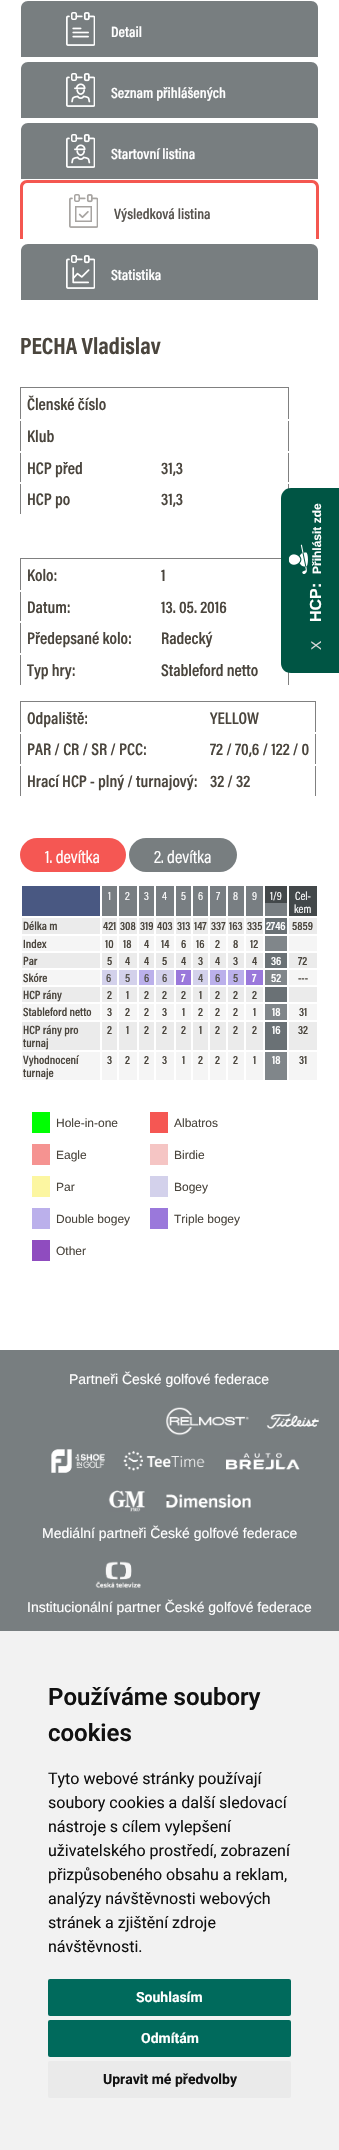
#include "include/core/SkBlurTypes.h"
#include "include/core/SkCanvas.h"
#include "include/core/SkData.h"
#include "include/core/SkFont.h"
#include "include/core/SkFontMgr.h"
#include "include/core/SkImage.h"
#include "include/core/SkMaskFilter.h"
#include "include/core/SkPaint.h"
#include "include/core/SkPathBuilder.h"
#include "include/core/SkTextBlob.h"
#include "include/effects/SkDashPathEffect.h"
#include "include/effects/SkGradientShader.h"
#include "include/utils/SkParsePath.h"

extern sk_sp<SkFontMgr> fontMgr;

void draw(SkCanvas* canvas) {
  SkPaint p;
  p.setAntiAlias(true);
  canvas->clear(SK_ColorWHITE);
  p.setColor(SkColorSetRGB(120, 126, 128));
  canvas->drawPath(SkPathBuilder().moveTo(28, 1).lineTo(311, 1).cubicTo(315, 1, 318, 4, 318, 8).lineTo(318, 57).lineTo(21, 57).lineTo(21, 8).cubicTo(21, 4, 24, 1, 28, 1).close().detach(), p);
  canvas->drawImageRect(SkImages::DeferredFromEncodedData(SkData::MakeFromFileName("images/1.png")), SkRect::MakeLTRB(66, 12, 95, 46), SkSamplingOptions());
  canvas->drawPath(SkPathBuilder().moveTo(28, 62).lineTo(311, 62).cubicTo(315, 62, 318, 65, 318, 69).lineTo(318, 118).lineTo(21, 118).lineTo(21, 69).cubicTo(21, 65, 24, 62, 28, 62).close().detach(), p);
  canvas->drawImageRect(SkImages::DeferredFromEncodedData(SkData::MakeFromFileName("images/2.png")), SkRect::MakeLTRB(66, 73, 95, 107), SkSamplingOptions());
  canvas->drawPath(SkPathBuilder().moveTo(28, 123).lineTo(311, 123).cubicTo(315, 123, 318, 126, 318, 130).lineTo(318, 179).lineTo(21, 179).lineTo(21, 130).cubicTo(21, 126, 24, 123, 28, 123).close().detach(), p);
  canvas->drawImageRect(SkImages::DeferredFromEncodedData(SkData::MakeFromFileName("images/2.png")), SkRect::MakeLTRB(66, 134, 95, 168), SkSamplingOptions());
  p.setColor(SkColorSetRGB(244, 87, 80));
  canvas->drawPath(SkPathBuilder(SkPathFillType::kEvenOdd).moveTo(27, 180).lineTo(312, 180).cubicTo(316, 180, 319, 183, 319, 187).lineTo(319, 239).lineTo(20, 239).lineTo(20, 187).cubicTo(20, 183, 23, 180, 27, 180).close().moveTo(27, 183).lineTo(312, 183).cubicTo(314, 183, 316, 185, 316, 187).lineTo(316, 239).lineTo(23, 239).lineTo(23, 187).cubicTo(23, 185, 25, 183, 27, 183).close().detach(), p);
  canvas->drawImageRect(SkImages::DeferredFromEncodedData(SkData::MakeFromFileName("images/3.png")), SkRect::MakeLTRB(69, 194, 98, 228), SkSamplingOptions());
  p.setColor(SkColorSetRGB(120, 126, 128));
  canvas->drawPath(SkPathBuilder().moveTo(28, 244).lineTo(311, 244).cubicTo(315, 244, 318, 247, 318, 251).lineTo(318, 300).lineTo(21, 300).lineTo(21, 251).cubicTo(21, 247, 24, 244, 28, 244).close().detach(), p);
  canvas->drawImageRect(SkImages::DeferredFromEncodedData(SkData::MakeFromFileName("images/4.png")), SkRect::MakeLTRB(66, 255, 95, 289), SkSamplingOptions());
  p.setColor(SkColorSetRGB(128, 128, 128));
  canvas->drawRect(SkRect::MakeLTRB(20, 387, 289, 388), p);
  canvas->drawRect(SkRect::MakeLTRB(288, 387, 289, 489), p);
  canvas->drawRect(SkRect::MakeLTRB(20, 387, 21, 516), p);
  p.setColor(SK_ColorWHITE);
  canvas->drawRect(SkRect::MakeLTRB(20, 419, 21, 421), p);
  canvas->drawRect(SkRect::MakeLTRB(288, 419, 289, 421), p);
  canvas->drawRect(SkRect::MakeLTRB(20, 451, 21, 453), p);
  canvas->drawRect(SkRect::MakeLTRB(288, 451, 289, 453), p);
  canvas->drawRect(SkRect::MakeLTRB(20, 482, 21, 484), p);
  canvas->drawRect(SkRect::MakeLTRB(288, 482, 289, 484), p);
  canvas->drawRect(SkRect::MakeLTRB(20, 514, 21, 516), p);
  p.setColor(SkColorSetRGB(128, 128, 128));
  canvas->drawRect(SkRect::MakeLTRB(20, 558, 289, 559), p);
  canvas->drawRect(SkRect::MakeLTRB(288, 672, 289, 687), p);
  canvas->drawRect(SkRect::MakeLTRB(20, 558, 21, 687), p);
  p.setColor(SK_ColorWHITE);
  canvas->drawRect(SkRect::MakeLTRB(20, 590, 21, 592), p);
  canvas->drawRect(SkRect::MakeLTRB(20, 621, 21, 623), p);
  canvas->drawRect(SkRect::MakeLTRB(20, 653, 21, 655), p);
  canvas->drawRect(SkRect::MakeLTRB(20, 685, 21, 687), p);
  canvas->drawRect(SkRect::MakeLTRB(288, 685, 289, 687), p);
  p.setColor(SkColorSetRGB(128, 128, 128));
  canvas->drawRect(SkRect::MakeLTRB(20, 701, 316, 702), p);
  canvas->drawRect(SkRect::MakeLTRB(315, 701, 316, 798), p);
  canvas->drawRect(SkRect::MakeLTRB(20, 701, 21, 798), p);
  p.setColor(SK_ColorWHITE);
  canvas->drawRect(SkRect::MakeLTRB(20, 732, 21, 734), p);
  canvas->drawRect(SkRect::MakeLTRB(315, 732, 316, 734), p);
  canvas->drawRect(SkRect::MakeLTRB(20, 764, 21, 766), p);
  canvas->drawRect(SkRect::MakeLTRB(315, 764, 316, 766), p);
  canvas->drawRect(SkRect::MakeLTRB(20, 796, 21, 798), p);
  canvas->drawRect(SkRect::MakeLTRB(315, 796, 316, 798), p);
  p.setColor(SkColorSetRGB(245, 87, 83));
  canvas->drawRoundRect(SkRect::MakeLTRB(20, 838, 126, 872), 17, 17, p);
  p.setColor(SkColorSetRGB(120, 126, 128));
  canvas->drawRoundRect(SkRect::MakeLTRB(129, 838, 237, 872), 17, 17, p);
  p.setColor(SkColorSetRGB(73, 88, 130));
  canvas->drawRect(SkRect::MakeLTRB(22, 886, 100, 916), p);
  p.setColor(SkColorSetRGB(120, 126, 130));
  canvas->drawRect(SkRect::MakeLTRB(102, 886, 117, 916), p);
  canvas->drawRect(SkRect::MakeLTRB(119, 886, 137, 916), p);
  canvas->drawRect(SkRect::MakeLTRB(139, 886, 154, 916), p);
  canvas->drawRect(SkRect::MakeLTRB(156, 886, 174, 916), p);
  canvas->drawRect(SkRect::MakeLTRB(176, 886, 191, 916), p);
  canvas->drawRect(SkRect::MakeLTRB(193, 886, 208, 916), p);
  canvas->drawRect(SkRect::MakeLTRB(210, 886, 226, 916), p);
  canvas->drawRect(SkRect::MakeLTRB(228, 886, 244, 916), p);
  canvas->drawRect(SkRect::MakeLTRB(246, 886, 263, 916), p);
  canvas->drawRect(SkRect::MakeLTRB(265, 903, 287, 916), p);
  p.setColor(SkColorSetRGB(67, 72, 74));
  canvas->drawRect(SkRect::MakeLTRB(265, 886, 287, 903), p);
  canvas->drawRect(SkRect::MakeLTRB(289, 886, 317, 916), p);
  p.setColor(SkColorSetRGB(235, 235, 235));
  canvas->drawRect(SkRect::MakeLTRB(22, 918, 100, 934), p);
  canvas->drawRect(SkRect::MakeLTRB(102, 918, 117, 934), p);
  canvas->drawRect(SkRect::MakeLTRB(119, 918, 137, 934), p);
  canvas->drawRect(SkRect::MakeLTRB(139, 918, 154, 934), p);
  canvas->drawRect(SkRect::MakeLTRB(156, 918, 174, 934), p);
  canvas->drawRect(SkRect::MakeLTRB(176, 918, 191, 934), p);
  canvas->drawRect(SkRect::MakeLTRB(193, 918, 208, 934), p);
  canvas->drawRect(SkRect::MakeLTRB(210, 918, 226, 934), p);
  canvas->drawRect(SkRect::MakeLTRB(228, 918, 244, 934), p);
  canvas->drawRect(SkRect::MakeLTRB(246, 918, 263, 934), p);
  p.setColor(SkColorSetRGB(106, 113, 117));
  canvas->drawRect(SkRect::MakeLTRB(265, 918, 287, 934), p);
  p.setColor(SkColorSetRGB(235, 235, 235));
  canvas->drawRect(SkRect::MakeLTRB(289, 918, 317, 934), p);
  p.setColor(SkColorSetRGB(245, 245, 245));
  canvas->drawRect(SkRect::MakeLTRB(22, 936, 100, 951), p);
  canvas->drawRect(SkRect::MakeLTRB(102, 936, 117, 951), p);
  canvas->drawRect(SkRect::MakeLTRB(119, 936, 137, 951), p);
  canvas->drawRect(SkRect::MakeLTRB(139, 936, 154, 951), p);
  canvas->drawRect(SkRect::MakeLTRB(156, 936, 174, 951), p);
  canvas->drawRect(SkRect::MakeLTRB(176, 936, 191, 951), p);
  canvas->drawRect(SkRect::MakeLTRB(193, 936, 208, 951), p);
  canvas->drawRect(SkRect::MakeLTRB(210, 936, 226, 951), p);
  canvas->drawRect(SkRect::MakeLTRB(228, 936, 244, 951), p);
  canvas->drawRect(SkRect::MakeLTRB(246, 936, 263, 951), p);
  p.setColor(SkColorSetRGB(128, 134, 138));
  canvas->drawRect(SkRect::MakeLTRB(265, 936, 287, 951), p);
  p.setColor(SkColorSetRGB(245, 245, 245));
  canvas->drawRect(SkRect::MakeLTRB(289, 936, 317, 951), p);
  p.setColor(SkColorSetRGB(235, 235, 235));
  canvas->drawRect(SkRect::MakeLTRB(22, 953, 100, 968), p);
  canvas->drawRect(SkRect::MakeLTRB(102, 953, 117, 968), p);
  canvas->drawRect(SkRect::MakeLTRB(119, 953, 137, 968), p);
  canvas->drawRect(SkRect::MakeLTRB(139, 953, 154, 968), p);
  canvas->drawRect(SkRect::MakeLTRB(156, 953, 174, 968), p);
  canvas->drawRect(SkRect::MakeLTRB(176, 953, 191, 968), p);
  canvas->drawRect(SkRect::MakeLTRB(193, 953, 208, 968), p);
  canvas->drawRect(SkRect::MakeLTRB(210, 953, 226, 968), p);
  canvas->drawRect(SkRect::MakeLTRB(228, 953, 244, 968), p);
  canvas->drawRect(SkRect::MakeLTRB(246, 953, 263, 968), p);
  p.setColor(SkColorSetRGB(106, 113, 117));
  canvas->drawRect(SkRect::MakeLTRB(265, 953, 287, 968), p);
  p.setColor(SkColorSetRGB(235, 235, 235));
  canvas->drawRect(SkRect::MakeLTRB(289, 953, 317, 968), p);
  p.setColor(SkColorSetRGB(245, 245, 245));
  canvas->drawRect(SkRect::MakeLTRB(22, 970, 100, 985), p);
  p.setColor(SkColorSetRGB(211, 209, 235));
  canvas->drawRect(SkRect::MakeLTRB(102, 970, 117, 985), p);
  canvas->drawRect(SkRect::MakeLTRB(119, 970, 137, 985), p);
  p.setColor(SkColorSetRGB(187, 176, 235));
  canvas->drawRect(SkRect::MakeLTRB(139, 970, 154, 985), p);
  p.setColor(SkColorSetRGB(211, 209, 235));
  canvas->drawRect(SkRect::MakeLTRB(156, 970, 174, 985), p);
  p.setColor(SkColorSetRGB(154, 120, 219));
  canvas->drawRect(SkRect::MakeLTRB(176, 970, 191, 985), p);
  p.setColor(SkColorSetRGB(211, 209, 235));
  canvas->drawRect(SkRect::MakeLTRB(193, 970, 208, 985), p);
  p.setColor(SkColorSetRGB(187, 176, 235));
  canvas->drawRect(SkRect::MakeLTRB(210, 970, 226, 985), p);
  canvas->drawRect(SkRect::MakeLTRB(228, 970, 244, 985), p);
  p.setColor(SkColorSetRGB(154, 120, 219));
  canvas->drawRect(SkRect::MakeLTRB(246, 970, 263, 985), p);
  p.setColor(SkColorSetRGB(128, 134, 138));
  canvas->drawRect(SkRect::MakeLTRB(265, 970, 287, 985), p);
  p.setColor(SkColorSetRGB(245, 245, 245));
  canvas->drawRect(SkRect::MakeLTRB(289, 970, 317, 985), p);
  p.setColor(SkColorSetRGB(235, 235, 235));
  canvas->drawRect(SkRect::MakeLTRB(22, 987, 100, 1002), p);
  canvas->drawRect(SkRect::MakeLTRB(102, 987, 117, 1002), p);
  canvas->drawRect(SkRect::MakeLTRB(119, 987, 137, 1002), p);
  canvas->drawRect(SkRect::MakeLTRB(139, 987, 154, 1002), p);
  canvas->drawRect(SkRect::MakeLTRB(156, 987, 174, 1002), p);
  canvas->drawRect(SkRect::MakeLTRB(176, 987, 191, 1002), p);
  canvas->drawRect(SkRect::MakeLTRB(193, 987, 208, 1002), p);
  canvas->drawRect(SkRect::MakeLTRB(210, 987, 226, 1002), p);
  canvas->drawRect(SkRect::MakeLTRB(228, 987, 244, 1002), p);
  canvas->drawRect(SkRect::MakeLTRB(246, 987, 263, 1002), p);
  p.setColor(SkColorSetRGB(106, 113, 117));
  canvas->drawRect(SkRect::MakeLTRB(265, 987, 287, 1002), p);
  p.setColor(SkColorSetRGB(235, 235, 235));
  canvas->drawRect(SkRect::MakeLTRB(289, 987, 317, 1002), p);
  p.setColor(SkColorSetRGB(245, 245, 245));
  canvas->drawRect(SkRect::MakeLTRB(22, 1004, 100, 1020), p);
  canvas->drawRect(SkRect::MakeLTRB(102, 1004, 117, 1020), p);
  canvas->drawRect(SkRect::MakeLTRB(119, 1004, 137, 1020), p);
  canvas->drawRect(SkRect::MakeLTRB(139, 1004, 154, 1020), p);
  canvas->drawRect(SkRect::MakeLTRB(156, 1004, 174, 1020), p);
  canvas->drawRect(SkRect::MakeLTRB(176, 1004, 191, 1020), p);
  canvas->drawRect(SkRect::MakeLTRB(193, 1004, 208, 1020), p);
  canvas->drawRect(SkRect::MakeLTRB(210, 1004, 226, 1020), p);
  canvas->drawRect(SkRect::MakeLTRB(228, 1004, 244, 1020), p);
  canvas->drawRect(SkRect::MakeLTRB(246, 1004, 263, 1020), p);
  p.setColor(SkColorSetRGB(128, 134, 138));
  canvas->drawRect(SkRect::MakeLTRB(265, 1004, 287, 1020), p);
  p.setColor(SkColorSetRGB(245, 245, 245));
  canvas->drawRect(SkRect::MakeLTRB(289, 1004, 317, 1020), p);
  p.setColor(SkColorSetRGB(235, 235, 235));
  canvas->drawRect(SkRect::MakeLTRB(22, 1022, 100, 1050), p);
  canvas->drawRect(SkRect::MakeLTRB(102, 1022, 117, 1050), p);
  canvas->drawRect(SkRect::MakeLTRB(119, 1022, 137, 1050), p);
  canvas->drawRect(SkRect::MakeLTRB(139, 1022, 154, 1050), p);
  canvas->drawRect(SkRect::MakeLTRB(156, 1022, 174, 1050), p);
  canvas->drawRect(SkRect::MakeLTRB(176, 1022, 191, 1050), p);
  canvas->drawRect(SkRect::MakeLTRB(193, 1022, 208, 1050), p);
  canvas->drawRect(SkRect::MakeLTRB(210, 1022, 226, 1050), p);
  canvas->drawRect(SkRect::MakeLTRB(228, 1022, 244, 1050), p);
  canvas->drawRect(SkRect::MakeLTRB(246, 1022, 263, 1050), p);
  p.setColor(SkColorSetRGB(106, 113, 117));
  canvas->drawRect(SkRect::MakeLTRB(265, 1022, 287, 1050), p);
  p.setColor(SkColorSetRGB(235, 235, 235));
  canvas->drawRect(SkRect::MakeLTRB(289, 1022, 317, 1050), p);
  p.setColor(SkColorSetRGB(245, 245, 245));
  canvas->drawRect(SkRect::MakeLTRB(22, 1052, 100, 1080), p);
  canvas->drawRect(SkRect::MakeLTRB(102, 1052, 117, 1080), p);
  canvas->drawRect(SkRect::MakeLTRB(119, 1052, 137, 1080), p);
  canvas->drawRect(SkRect::MakeLTRB(139, 1052, 154, 1080), p);
  canvas->drawRect(SkRect::MakeLTRB(156, 1052, 174, 1080), p);
  canvas->drawRect(SkRect::MakeLTRB(176, 1052, 191, 1080), p);
  canvas->drawRect(SkRect::MakeLTRB(193, 1052, 208, 1080), p);
  canvas->drawRect(SkRect::MakeLTRB(210, 1052, 226, 1080), p);
  canvas->drawRect(SkRect::MakeLTRB(228, 1052, 244, 1080), p);
  canvas->drawRect(SkRect::MakeLTRB(246, 1052, 263, 1080), p);
  p.setColor(SkColorSetRGB(128, 134, 138));
  canvas->drawRect(SkRect::MakeLTRB(265, 1052, 287, 1080), p);
  p.setColor(SkColorSetRGB(245, 245, 245));
  canvas->drawRect(SkRect::MakeLTRB(289, 1052, 317, 1080), p);
  p.setColor(SkColorSetRGB(0, 255, 2));
  canvas->drawRect(SkRect::MakeLTRB(32, 1112, 50, 1133), p);
  p.setColor(SkColorSetRGB(245, 87, 83));
  canvas->drawRect(SkRect::MakeLTRB(150, 1112, 168, 1133), p);
  p.setColor(SkColorSetRGB(245, 147, 145));
  canvas->drawRect(SkRect::MakeLTRB(32, 1144, 50, 1165), p);
  p.setColor(SkColorSetRGB(245, 197, 196));
  canvas->drawRect(SkRect::MakeLTRB(150, 1144, 168, 1165), p);
  p.setColor(SkColorSetRGB(252, 246, 161));
  canvas->drawRect(SkRect::MakeLTRB(32, 1176, 50, 1197), p);
  p.setColor(SkColorSetRGB(211, 209, 235));
  canvas->drawRect(SkRect::MakeLTRB(150, 1176, 168, 1197), p);
  p.setColor(SkColorSetRGB(187, 176, 235));
  canvas->drawRect(SkRect::MakeLTRB(32, 1208, 50, 1229), p);
  p.setColor(SkColorSetRGB(154, 120, 219));
  canvas->drawRect(SkRect::MakeLTRB(150, 1208, 168, 1229), p);
  p.setColor(SkColorSetRGB(143, 76, 191));
  canvas->drawRect(SkRect::MakeLTRB(32, 1240, 50, 1261), p);
  p.setColor(SkColorSetRGB(0, 85, 68));
  canvas->drawPath(SkPathBuilder().moveTo(281, 663).lineTo(281, 498).cubicTo(281, 493, 285, 488, 291, 488).lineTo(339, 488).lineTo(339, 673).lineTo(291, 673).cubicTo(285, 673, 281, 669, 281, 663).close().detach(), p);
  canvas->drawImageRect(SkImages::DeferredFromEncodedData(SkData::MakeFromFileName("images/5.png")), SkRect::MakeLTRB(288, 544, 308, 574), SkSamplingOptions());
  p.setColor(SkColorSetRGB(120, 126, 128));
  canvas->drawRect(SkRect::MakeLTRB(0, 1350, 339, 1631), p);
  canvas->drawImageRect(SkImages::DeferredFromEncodedData(SkData::MakeFromFileName("images/6.png")), SkRect::MakeLTRB(166, 1407, 249, 1436), SkSamplingOptions());
  canvas->drawImageRect(SkImages::DeferredFromEncodedData(SkData::MakeFromFileName("images/7.png")), SkRect::MakeLTRB(266, 1413, 320, 1429), SkSamplingOptions());
  canvas->drawImageRect(SkImages::DeferredFromEncodedData(SkData::MakeFromFileName("images/8.png")), SkRect::MakeLTRB(51, 1449, 105, 1473), SkSamplingOptions());
  canvas->drawImageRect(SkImages::DeferredFromEncodedData(SkData::MakeFromFileName("images/9.png")), SkRect::MakeLTRB(123, 1451, 205, 1471), SkSamplingOptions());
  canvas->drawImageRect(SkImages::DeferredFromEncodedData(SkData::MakeFromFileName("images/10.png")), SkRect::MakeLTRB(226, 1452, 300, 1470), SkSamplingOptions());
  canvas->drawImageRect(SkImages::DeferredFromEncodedData(SkData::MakeFromFileName("images/11.png")), SkRect::MakeLTRB(108, 1490, 145, 1512), SkSamplingOptions());
  canvas->drawImageRect(SkImages::DeferredFromEncodedData(SkData::MakeFromFileName("images/12.png")), SkRect::MakeLTRB(166, 1494, 251, 1508), SkSamplingOptions());
  canvas->drawImageRect(SkImages::DeferredFromEncodedData(SkData::MakeFromFileName("images/13.png")), SkRect::MakeLTRB(95, 1561, 141, 1588), SkSamplingOptions());
  p.setColor(SkColorSetRGB(242, 242, 242));
  canvas->drawRect(SkRect::MakeLTRB(0, 1631, 339, 2150), p);
  p.setColor(SkColorSetRGB(0, 106, 92));
  canvas->drawRoundRect(SkRect::MakeLTRB(48, 1979, 291, 2016), 2, 2, p);
  canvas->drawRoundRect(SkRect::MakeLTRB(48, 2020, 291, 2057), 2, 2, p);
  p.setColor(SkColorSetRGB(234, 234, 234));
  canvas->drawRoundRect(SkRect::MakeLTRB(48, 2061, 291, 2098), 2, 2, p);
  SkFont font1(fontMgr->matchFamilyStyle("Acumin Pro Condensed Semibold", SkFontStyle(600, SkFontStyle::kNormal_Width, SkFontStyle::kUpright_Slant)), 15);
  font1.setSubpixel(true);
  p.setColor(SK_ColorWHITE);
  canvas->drawString("Detail", 111, 37, font1, p);
  canvas->drawString("Seznam přihlášených", 111, 98, font1, p);
  canvas->drawString("Startovní listina", 111, 159, font1, p);
  p.setColor(SkColorSetRGB(87, 84, 79));
  canvas->drawString("Výsledková listina", 114, 219, font1, p);
  p.setColor(SK_ColorWHITE);
  canvas->drawString("Statistika", 111, 280, font1, p);
  SkFont font2(fontMgr->matchFamilyStyle("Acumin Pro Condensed", SkFontStyle::Bold()), 23.75f);
  font2.setSubpixel(true);
  p.setColor(SkColorSetRGB(74, 69, 61));
  canvas->drawString("PECHA Vladislav", 20, 354, font2, p);
  SkFont font3(fontMgr->matchFamilyStyle("Acumin Pro Condensed Semibold", SkFontStyle(600, SkFontStyle::kNormal_Width, SkFontStyle::kUpright_Slant)), 17);
  font3.setSubpixel(true);
  canvas->drawString("Členské číslo", 27, 410, font3, p);
  canvas->drawString("Klub", 27, 442, font3, p);
  canvas->drawString("HCP před", 27, 474, font3, p);
  canvas->drawString("31,3", 161, 474, font3, p);
  canvas->drawString("HCP po", 27, 505, font3, p);
  canvas->drawString("31,3", 161, 505, font3, p);
  canvas->drawString("Kolo:", 27, 581, font3, p);
  canvas->drawString("1", 161, 581, font3, p);
  canvas->drawString("Datum:", 27, 613, font3, p);
  canvas->drawString("13. 05. 2016", 161, 613, font3, p);
  canvas->drawString("Předepsané kolo:", 27, 644, font3, p);
  canvas->drawString("Radecký", 161, 644, font3, p);
  canvas->drawString("Typ hry:", 27, 676, font3, p);
  canvas->drawString("Stableford netto", 161, 676, font3, p);
  canvas->drawString("Odpaliště:", 27, 724, font3, p);
  canvas->drawString("YELLOW", 210, 724, font3, p);
  canvas->drawString("PAR / CR / SR / PCC:", 27, 755, font3, p);
  canvas->drawString("72 / 70,6 / 122 / 0", 210, 755, font3, p);
  canvas->drawString("Hrací HCP - plný / turnajový:", 27, 787, font3, p);
  canvas->drawString("32 / 32", 210, 787, font3, p);
  SkFont font4(fontMgr->matchFamilyStyle("Acumin Pro Condensed", SkFontStyle::Normal()), 18);
  font4.setSubpixel(true);
  p.setColor(SK_ColorWHITE);
  canvas->drawString("1. devítka", 45, 863, font4, p);
  canvas->drawString("2. devítka", 154, 863, font4, p);
  SkFont font5(fontMgr->matchFamilyStyle("Acumin Pro Condensed", SkFontStyle::Normal()), 12);
  font5.setSubpixel(true);
  canvas->drawString("1", 108, 900, font5, p);
  canvas->drawString("2", 125, 900, font5, p);
  canvas->drawString("3", 144, 900, font5, p);
  canvas->drawString("4", 162, 900, font5, p);
  canvas->drawString("5", 181, 900, font5, p);
  canvas->drawString("6", 198, 900, font5, p);
  canvas->drawString("7", 216, 900, font5, p);
  canvas->drawString("8", 233, 900, font5, p);
  canvas->drawString("9", 252, 900, font5, p);
  canvas->drawString("1/9", 270, 900, font5, p);
  canvas->drawString("Cel-", 295, 900, font5, p);
  canvas->drawString("kem", 294, 913, font5, p);
  SkFont font6(fontMgr->matchFamilyStyle("Acumin Pro Condensed Semibold", SkFontStyle(600, SkFontStyle::kNormal_Width, SkFontStyle::kUpright_Slant)), 12);
  font6.setSubpixel(true);
  p.setColor(SkColorSetRGB(74, 69, 61));
  canvas->drawString("Délka m", 23, 930, font6, p);
  canvas->drawString("421", 103, 930, font6, p);
  canvas->drawString("308", 120, 930, font6, p);
  canvas->drawString("319", 140, 930, font6, p);
  canvas->drawString("403", 157, 930, font6, p);
  canvas->drawString("313", 177, 930, font6, p);
  canvas->drawString("147", 194, 930, font6, p);
  canvas->drawString("337", 211, 930, font6, p);
  canvas->drawString("163", 229, 930, font6, p);
  canvas->drawString("335", 247, 930, font6, p);
  p.setColor(SK_ColorWHITE);
  canvas->drawString("2746", 266, 930, font6, p);
  p.setColor(SkColorSetRGB(74, 69, 61));
  canvas->drawString("5859", 292, 930, font6, p);
  canvas->drawString("Index", 23, 948, font6, p);
  canvas->drawString("10", 105, 948, font6, p);
  canvas->drawString("18", 123, 948, font6, p);
  canvas->drawString("4", 144, 948, font6, p);
  canvas->drawString("14", 161, 948, font6, p);
  canvas->drawString("6", 181, 948, font6, p);
  canvas->drawString("16", 196, 948, font6, p);
  canvas->drawString("2", 215, 948, font6, p);
  canvas->drawString("8", 233, 948, font6, p);
  canvas->drawString("12", 250, 948, font6, p);
  canvas->drawString("Par", 23, 965, font6, p);
  canvas->drawString("5", 107, 965, font6, p);
  canvas->drawString("4", 125, 965, font6, p);
  canvas->drawString("4", 144, 965, font6, p);
  canvas->drawString("5", 162, 965, font6, p);
  canvas->drawString("4", 181, 965, font6, p);
  canvas->drawString("3", 198, 965, font6, p);
  canvas->drawString("4", 215, 965, font6, p);
  canvas->drawString("3", 233, 965, font6, p);
  canvas->drawString("4", 252, 965, font6, p);
  p.setColor(SK_ColorWHITE);
  canvas->drawString("36", 271, 965, font6, p);
  p.setColor(SkColorSetRGB(74, 69, 61));
  canvas->drawString("72", 298, 965, font6, p);
  canvas->drawString("Skóre", 23, 982, font6, p);
  p.setColor(SkColorSetRGB(87, 84, 79));
  canvas->drawString("6", 106, 982, font6, p);
  canvas->drawString("5", 125, 982, font6, p);
  canvas->drawString("6", 144, 982, font6, p);
  canvas->drawString("6", 162, 982, font6, p);
  p.setColor(SK_ColorWHITE);
  canvas->drawString("7", 181, 982, font6, p);
  p.setColor(SkColorSetRGB(87, 84, 79));
  canvas->drawString("4", 198, 982, font6, p);
  canvas->drawString("6", 215, 982, font6, p);
  canvas->drawString("5", 233, 982, font6, p);
  p.setColor(SK_ColorWHITE);
  canvas->drawString("7", 252, 982, font6, p);
  canvas->drawString("52", 271, 982, font6, p);
  p.setColor(SkColorSetRGB(74, 69, 61));
  canvas->drawString("---", 298, 982, font6, p);
  canvas->drawString("HCP rány", 23, 999, font6, p);
  canvas->drawString("2", 107, 999, font6, p);
  canvas->drawString("1", 126, 999, font6, p);
  canvas->drawString("2", 144, 999, font6, p);
  canvas->drawString("2", 162, 999, font6, p);
  canvas->drawString("2", 181, 999, font6, p);
  canvas->drawString("1", 199, 999, font6, p);
  canvas->drawString("2", 215, 999, font6, p);
  canvas->drawString("2", 233, 999, font6, p);
  canvas->drawString("2", 252, 999, font6, p);
  canvas->drawString("Stableford netto", 23, 1016, font6, p);
  canvas->drawString("3", 107, 1016, font6, p);
  canvas->drawString("2", 125, 1016, font6, p);
  canvas->drawString("2", 144, 1016, font6, p);
  canvas->drawString("3", 162, 1016, font6, p);
  canvas->drawString("1", 182, 1016, font6, p);
  canvas->drawString("2", 198, 1016, font6, p);
  canvas->drawString("2", 215, 1016, font6, p);
  canvas->drawString("2", 233, 1016, font6, p);
  canvas->drawString("1", 253, 1016, font6, p);
  p.setColor(SK_ColorWHITE);
  canvas->drawString("18", 272, 1016, font6, p);
  p.setColor(SkColorSetRGB(74, 69, 61));
  canvas->drawString("31", 299, 1016, font6, p);
  canvas->drawString("HCP rány pro", 23, 1034, font6, p);
  canvas->drawString("turnaj", 23, 1047, font6, p);
  canvas->drawString("2", 107, 1034, font6, p);
  canvas->drawString("1", 126, 1034, font6, p);
  canvas->drawString("2", 144, 1034, font6, p);
  canvas->drawString("2", 162, 1034, font6, p);
  canvas->drawString("2", 181, 1034, font6, p);
  canvas->drawString("1", 199, 1034, font6, p);
  canvas->drawString("2", 215, 1034, font6, p);
  canvas->drawString("2", 233, 1034, font6, p);
  canvas->drawString("2", 252, 1034, font6, p);
  p.setColor(SK_ColorWHITE);
  canvas->drawString("16", 272, 1034, font6, p);
  p.setColor(SkColorSetRGB(74, 69, 61));
  canvas->drawString("32", 298, 1034, font6, p);
  canvas->drawString("Vyhodnocení", 23, 1064, font6, p);
  canvas->drawString("turnaje", 23, 1077, font6, p);
  canvas->drawString("3", 107, 1064, font6, p);
  canvas->drawString("2", 125, 1064, font6, p);
  canvas->drawString("2", 144, 1064, font6, p);
  canvas->drawString("3", 162, 1064, font6, p);
  canvas->drawString("1", 182, 1064, font6, p);
  canvas->drawString("2", 198, 1064, font6, p);
  canvas->drawString("2", 215, 1064, font6, p);
  canvas->drawString("2", 233, 1064, font6, p);
  canvas->drawString("1", 253, 1064, font6, p);
  p.setColor(SK_ColorWHITE);
  canvas->drawString("18", 272, 1064, font6, p);
  p.setColor(SkColorSetRGB(74, 69, 61));
  canvas->drawString("31", 299, 1064, font6, p);
  SkFont font7(fontMgr->matchFamilyStyle("Liberation Sans", SkFontStyle::Normal()), 12);
  font7.setSubpixel(true);
  canvas->drawString("Hole-in-one", 56, 1127, font7, p);
  canvas->drawString("Albatros", 174, 1127, font7, p);
  canvas->drawString("Eagle", 56, 1159, font7, p);
  canvas->drawString("Birdie", 174, 1159, font7, p);
  canvas->drawString("Par", 56, 1191, font7, p);
  canvas->drawString("Bogey", 174, 1191, font7, p);
  canvas->drawString("Double bogey", 56, 1223, font7, p);
  canvas->drawString("Triple bogey", 174, 1223, font7, p);
  canvas->drawString("Other", 56, 1255, font7, p);
  SkFont font8(fontMgr->matchFamilyStyle("Liberation Sans", SkFontStyle::Bold()), 12);
  font8.setSubpixel(true);
  p.setColor(SK_ColorWHITE);
  canvas->save();
  canvas->rotate(-90, 321, 574);
  canvas->drawString("Přihlásit zde", 321, 574, font8, p);
  canvas->restore();
  SkFont font9(fontMgr->matchFamilyStyle("Liberation Sans", SkFontStyle::Bold()), 16);
  font9.setSubpixel(true);
  canvas->save();
  canvas->rotate(-90, 321, 588);
  canvas->drawString(":", 321, 588, font9, p);
  canvas->restore();
  canvas->save();
  canvas->rotate(-90, 321, 622);
  canvas->drawString("HCP", 321, 622, font9, p);
  canvas->restore();
  SkFont font10(fontMgr->matchFamilyStyle("Liberation Sans", SkFontStyle::Normal()), 14);
  font10.setSubpixel(true);
  p.setColor(SkColorSetRGB(218, 218, 218));
  canvas->save();
  canvas->rotate(-90, 321, 650);
  canvas->drawString("X", 321, 650, font10, p);
  canvas->restore();
  p.setColor(SK_ColorWHITE);
  canvas->drawString("Partneři České golfové federace", 69, 1384, font10, p);
  canvas->drawString("Mediální partneři České golfové federace", 42, 1538, font10, p);
  canvas->drawString("Institucionální partner České golfové federace", 27, 1612, font10, p);
  SkFont font11(fontMgr->matchFamilyStyle("Roboto", SkFontStyle(600, SkFontStyle::kNormal_Width, SkFontStyle::kUpright_Slant)), 24);
  font11.setSubpixel(true);
  p.setColor(SkColorSetRGB(17, 17, 17));
  canvas->drawString("Používáme soubory", 48, 1705, font11, p);
  canvas->drawString("cookies", 48, 1741, font11, p);
  SkFont font12(fontMgr->matchFamilyStyle("Roboto", SkFontStyle::Normal()), 16);
  font12.setSubpixel(true);
  canvas->drawString("Tyto webové stránky používají", 48, 1784, font12, p);
  canvas->drawString("soubory cookies a další sledovací", 48, 1808, font12, p);
  canvas->drawString("nástroje s cílem vylepšení", 48, 1832, font12, p);
  canvas->drawString("uživatelského prostředí, zobrazení", 48, 1856, font12, p);
  canvas->drawString("přizpůsobeného obsahu a reklam,", 48, 1880, font12, p);
  canvas->drawString("analýzy návštěvnosti webových", 48, 1904, font12, p);
  canvas->drawString("stránek a zjištění zdroje", 48, 1928, font12, p);
  canvas->drawString("návštěvnosti.", 48, 1952, font12, p);
  SkFont font13(fontMgr->matchFamilyStyle("Roboto", SkFontStyle::Bold()), 14);
  font13.setSubpixel(true);
  p.setColor(SK_ColorWHITE);
  canvas->drawString("Souhlasím", 136, 2002, font13, p);
  canvas->drawString("Odmítám", 141, 2043, font13, p);
  p.setColor(SkColorSetRGB(17, 17, 17));
  canvas->drawString("Upravit mé předvolby", 103, 2084, font13, p);
}
